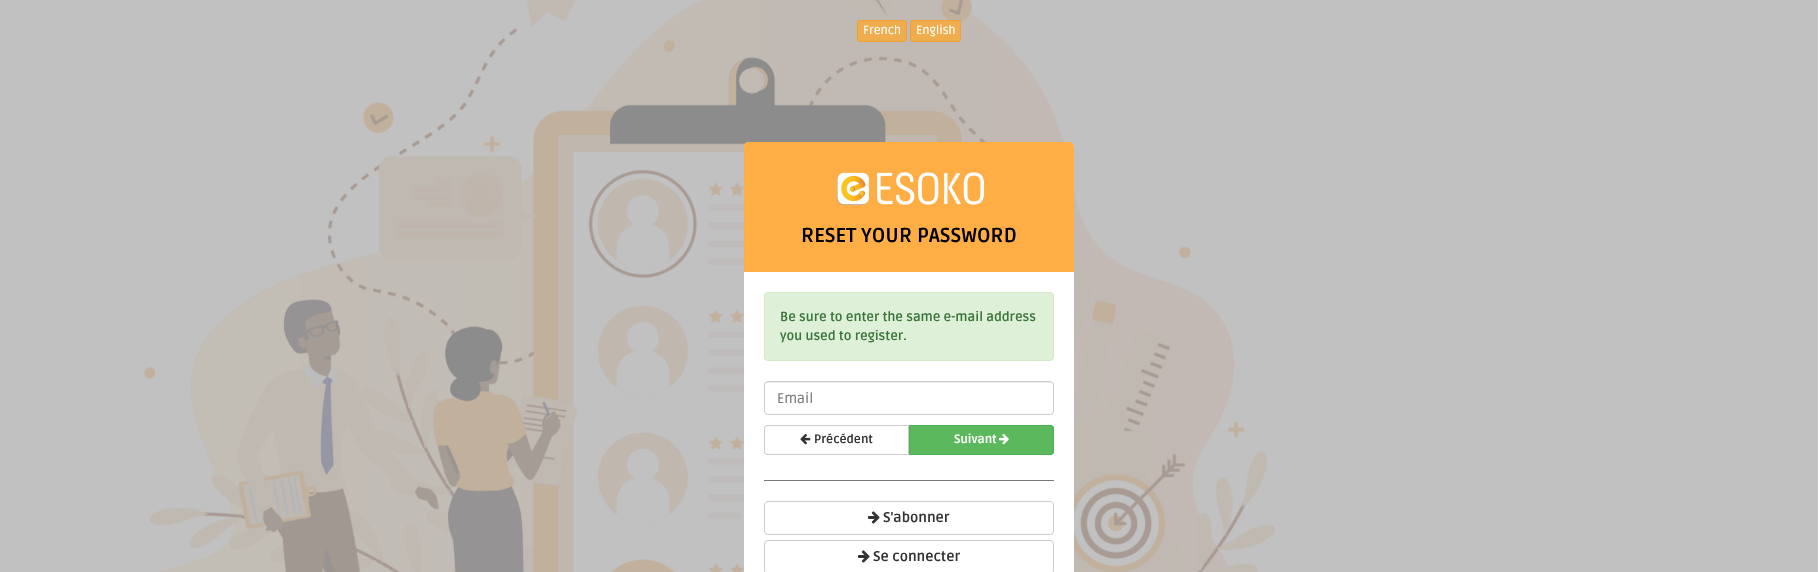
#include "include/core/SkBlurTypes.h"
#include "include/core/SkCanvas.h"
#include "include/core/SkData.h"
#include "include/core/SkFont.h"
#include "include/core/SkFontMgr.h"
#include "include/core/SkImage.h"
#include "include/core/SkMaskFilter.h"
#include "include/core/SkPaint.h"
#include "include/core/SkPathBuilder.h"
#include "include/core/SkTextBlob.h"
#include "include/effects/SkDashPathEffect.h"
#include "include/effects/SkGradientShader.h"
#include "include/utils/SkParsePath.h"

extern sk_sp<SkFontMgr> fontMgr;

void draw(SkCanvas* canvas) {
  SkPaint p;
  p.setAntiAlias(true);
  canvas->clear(SK_ColorWHITE);
  canvas->drawImageRect(SkImages::DeferredFromEncodedData(SkData::MakeFromFileName("images/1.png")), SkRect::MakeLTRB(0, 0, 1818, 572), SkSamplingOptions());
  p.setColor(SkColorSetRGB(240, 173, 78));
  canvas->drawRoundRect(SkRect::MakeLTRB(857.5f, 20.5f, 906.5f, 41.5f), 2.5f, 2.5f, p);
  p.setStyle(SkPaint::kStroke_Style);
  p.setStrokeWidth(1);
  p.setColor(SkColorSetRGB(238, 162, 54));
  canvas->drawRoundRect(SkRect::MakeLTRB(857.5f, 20.5f, 906.5f, 41.5f), 2.5f, 2.5f, p);
  p.setStyle(SkPaint::kFill_Style);
  p.setColor(SkColorSetRGB(240, 173, 78));
  canvas->drawRoundRect(SkRect::MakeLTRB(910.5f, 20.5f, 960.5f, 41.5f), 2.5f, 2.5f, p);
  p.setStyle(SkPaint::kStroke_Style);
  p.setColor(SkColorSetRGB(238, 162, 54));
  canvas->drawRoundRect(SkRect::MakeLTRB(910.5f, 20.5f, 960.5f, 41.5f), 2.5f, 2.5f, p);
  p.setStyle(SkPaint::kFill_Style);
  p.setColor(SK_ColorWHITE);
  canvas->drawRoundRect(SkRect::MakeLTRB(744, 142, 1074, 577), 5, 5, p);
  p.setColor(SkColorSetRGB(255, 173, 69));
  canvas->drawPath(SkPathBuilder().moveTo(749, 142).lineTo(1069, 142).cubicTo(1072, 142, 1074, 144, 1074, 147).lineTo(1074, 272).lineTo(744, 272).lineTo(744, 147).cubicTo(744, 144, 746, 142, 749, 142).close().detach(), p);
  canvas->drawImageRect(SkImages::DeferredFromEncodedData(SkData::MakeFromFileName("images/2.png")), SkRect::MakeLTRB(837, 172, 985, 205), SkSamplingOptions());
  p.setColor(SkColorSetRGB(223, 240, 216));
  canvas->drawRoundRect(SkRect::MakeLTRB(764.5f, 292.5f, 1053.5f, 360.5f), 3.5f, 3.5f, p);
  p.setStyle(SkPaint::kStroke_Style);
  p.setColor(SkColorSetRGB(214, 233, 198));
  canvas->drawRoundRect(SkRect::MakeLTRB(764.5f, 292.5f, 1053.5f, 360.5f), 3.5f, 3.5f, p);
  p.setStyle(SkPaint::kFill_Style);
  p.setColor(SkColorSetRGB(236, 236, 236));
  canvas->drawPath(SkPathBuilder().moveTo(768, 383).lineTo(1050, 383).cubicTo(1052, 383, 1053, 384, 1053, 386).cubicTo(1053, 384, 1052, 382, 1050, 382).lineTo(768, 382).cubicTo(766, 382, 765, 384, 765, 386).cubicTo(765, 384, 766, 383, 768, 383).close().detach(), p);
  p.setStyle(SkPaint::kStroke_Style);
  p.setColor(SkColorSetRGB(204, 204, 204));
  canvas->drawRoundRect(SkRect::MakeLTRB(764.5f, 381.5f, 1053.5f, 414.5f), 3.5f, 3.5f, p);
  canvas->drawPath(SkPathBuilder().moveTo(767, 425.5f).lineTo(908.5f, 425.5f).lineTo(908.5f, 454.5f).lineTo(767, 454.5f).cubicTo(765.5f, 454.5f, 764.5f, 453.5f, 764.5f, 452).lineTo(764.5f, 428).cubicTo(764.5f, 426.5f, 765.5f, 425.5f, 767, 425.5f).close().detach(), p);
  canvas->drawImageRect(SkImages::DeferredFromEncodedData(SkData::MakeFromFileName("images/3.png")), SkRect::MakeLTRB(800, 434, 811, 445), SkSamplingOptions());
  p.setStyle(SkPaint::kFill_Style);
  p.setColor(SkColorSetRGB(92, 184, 92));
  canvas->drawPath(SkPathBuilder().moveTo(909.5f, 425.5f).lineTo(1051, 425.5f).cubicTo(1052.5f, 425.5f, 1053.5f, 426.5f, 1053.5f, 428).lineTo(1053.5f, 452).cubicTo(1053.5f, 453.5f, 1052.5f, 454.5f, 1051, 454.5f).lineTo(909.5f, 454.5f).close().detach(), p);
  p.setStyle(SkPaint::kStroke_Style);
  p.setColor(SkColorSetRGB(76, 174, 76));
  canvas->drawPath(SkPathBuilder().moveTo(909.5f, 425.5f).lineTo(1051, 425.5f).cubicTo(1052.5f, 425.5f, 1053.5f, 426.5f, 1053.5f, 428).lineTo(1053.5f, 452).cubicTo(1053.5f, 453.5f, 1052.5f, 454.5f, 1051, 454.5f).lineTo(909.5f, 454.5f).close().detach(), p);
  canvas->drawImageRect(SkImages::DeferredFromEncodedData(SkData::MakeFromFileName("images/4.png")), SkRect::MakeLTRB(999, 434, 1009, 445), SkSamplingOptions());
  p.setStyle(SkPaint::kFill_Style);
  p.setColor(SkColorSetRGB(121, 121, 121));
  canvas->drawRect(SkRect::MakeLTRB(764, 480, 1054, 481), p);
  p.setStyle(SkPaint::kStroke_Style);
  p.setColor(SkColorSetRGB(204, 204, 204));
  canvas->drawRoundRect(SkRect::MakeLTRB(764.5f, 501.5f, 1053.5f, 534.5f), 3.5f, 3.5f, p);
  canvas->drawImageRect(SkImages::DeferredFromEncodedData(SkData::MakeFromFileName("images/5.png")), SkRect::MakeLTRB(868, 511, 880, 524), SkSamplingOptions());
  canvas->drawRoundRect(SkRect::MakeLTRB(764.5f, 540.5f, 1053.5f, 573.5f), 3.5f, 3.5f, p);
  canvas->drawImageRect(SkImages::DeferredFromEncodedData(SkData::MakeFromFileName("images/5.png")), SkRect::MakeLTRB(858, 550, 870, 563), SkSamplingOptions());
  SkFont font1(fontMgr->matchFamilyStyle("Ruda", SkFontStyle::Normal()), 12);
  font1.setSubpixel(true);
  p.setStyle(SkPaint::kFill_Style);
  p.setColor(SK_ColorWHITE);
  canvas->drawString("French", 863, 34, font1, p);
  canvas->drawString("English", 916, 34, font1, p);
  SkFont font2(fontMgr->matchFamilyStyle("Ruda", SkFontStyle::Bold()), 20);
  font2.setSubpixel(true);
  p.setColor(SK_ColorBLACK);
  canvas->drawString("RESET YOUR PASSWORD", 801, 242, font2, p);
  SkFont font3(fontMgr->matchFamilyStyle("Ruda", SkFontStyle::Bold()), 13);
  font3.setSubpixel(true);
  p.setColor(SkColorSetRGB(60, 118, 61));
  canvas->drawString("Be sure to enter the same e-mail address", 780, 321, font3, p);
  canvas->drawString("you used to register.", 780, 340, font3, p);
  SkFont font4(fontMgr->matchFamilyStyle("Ruda", SkFontStyle::Normal()), 14);
  font4.setSubpixel(true);
  p.setColor(SkColorSetRGB(119, 119, 119));
  canvas->drawString("Email", 777, 403, font4, p);
  SkFont font5(fontMgr->matchFamilyStyle("Ruda", SkFontStyle::Bold()), 12);
  font5.setSubpixel(true);
  p.setColor(SkColorSetRGB(51, 51, 51));
  canvas->drawString("Précédent", 814, 443, font5, p);
  p.setColor(SK_ColorWHITE);
  canvas->drawString("Suivant", 954, 443, font5, p);
  SkFont font6(fontMgr->matchFamilyStyle("Ruda", SkFontStyle::Bold()), 14);
  font6.setSubpixel(true);
  p.setColor(SkColorSetRGB(51, 51, 51));
  canvas->drawString("S'abonner", 883, 522, font6, p);
  canvas->drawString("Se connecter", 873, 561, font6, p);
}
